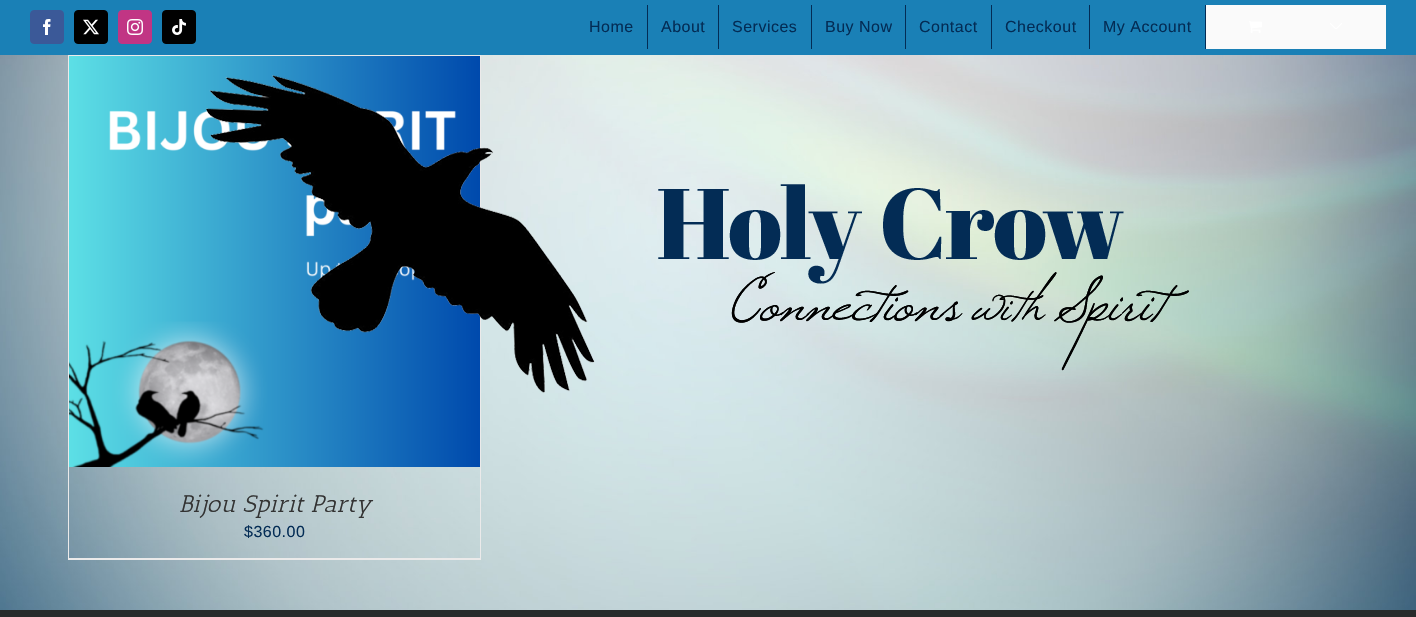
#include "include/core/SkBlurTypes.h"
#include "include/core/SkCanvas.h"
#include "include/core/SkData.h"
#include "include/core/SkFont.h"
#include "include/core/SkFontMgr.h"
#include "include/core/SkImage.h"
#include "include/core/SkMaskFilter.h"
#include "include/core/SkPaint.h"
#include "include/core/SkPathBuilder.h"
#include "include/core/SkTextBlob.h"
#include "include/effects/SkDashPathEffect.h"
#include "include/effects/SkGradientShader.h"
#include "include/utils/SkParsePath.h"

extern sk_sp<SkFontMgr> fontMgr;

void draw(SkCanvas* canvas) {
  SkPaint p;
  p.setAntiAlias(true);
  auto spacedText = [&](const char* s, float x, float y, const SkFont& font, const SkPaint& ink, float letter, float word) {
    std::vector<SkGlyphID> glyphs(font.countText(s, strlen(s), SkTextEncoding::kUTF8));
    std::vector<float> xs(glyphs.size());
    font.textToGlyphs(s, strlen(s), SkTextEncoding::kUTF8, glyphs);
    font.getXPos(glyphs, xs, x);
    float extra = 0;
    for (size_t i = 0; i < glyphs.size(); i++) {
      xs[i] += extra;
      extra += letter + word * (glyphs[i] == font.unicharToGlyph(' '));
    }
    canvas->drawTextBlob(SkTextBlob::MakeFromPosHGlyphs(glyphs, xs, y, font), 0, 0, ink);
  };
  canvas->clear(SK_ColorWHITE);
  canvas->drawImageRect(SkImages::DeferredFromEncodedData(SkData::MakeFromFileName("images/1.png")), SkRect::MakeLTRB(0, 55, 1416, 610), SkSamplingOptions());
  p.setColor(SkColorSetRGB(26, 128, 182));
  canvas->drawRect(SkRect::MakeLTRB(0, 0, 1416, 55), p);
  p.setColor(SkColorSetRGB(59, 89, 152));
  canvas->drawRoundRect(SkRect::MakeLTRB(30.5f, 10.5f, 63.5f, 43.5f), 3.5f, 3.5f, p);
  p.setStyle(SkPaint::kStroke_Style);
  p.setStrokeWidth(1);
  canvas->drawRoundRect(SkRect::MakeLTRB(30.5f, 10.5f, 63.5f, 43.5f), 3.5f, 3.5f, p);
  canvas->drawImageRect(SkImages::DeferredFromEncodedData(SkData::MakeFromFileName("images/2.png")), SkRect::MakeLTRB(43, 19, 51, 35), SkSamplingOptions());
  p.setStyle(SkPaint::kFill_Style);
  p.setColor(SK_ColorBLACK);
  canvas->drawRoundRect(SkRect::MakeLTRB(74.5f, 10.5f, 107.5f, 43.5f), 3.5f, 3.5f, p);
  p.setStyle(SkPaint::kStroke_Style);
  canvas->drawRoundRect(SkRect::MakeLTRB(74.5f, 10.5f, 107.5f, 43.5f), 3.5f, 3.5f, p);
  canvas->drawImageRect(SkImages::DeferredFromEncodedData(SkData::MakeFromFileName("images/3.png")), SkRect::MakeLTRB(83, 19, 99, 35), SkSamplingOptions());
  p.setStyle(SkPaint::kFill_Style);
  p.setColor(SkColorSetRGB(193, 53, 132));
  canvas->drawRoundRect(SkRect::MakeLTRB(118.5f, 10.5f, 151.5f, 43.5f), 3.5f, 3.5f, p);
  p.setStyle(SkPaint::kStroke_Style);
  canvas->drawRoundRect(SkRect::MakeLTRB(118.5f, 10.5f, 151.5f, 43.5f), 3.5f, 3.5f, p);
  canvas->drawImageRect(SkImages::DeferredFromEncodedData(SkData::MakeFromFileName("images/4.png")), SkRect::MakeLTRB(127, 19, 143, 35), SkSamplingOptions());
  p.setStyle(SkPaint::kFill_Style);
  p.setColor(SkColorSetRGB(1, 1, 1));
  canvas->drawRoundRect(SkRect::MakeLTRB(162.5f, 10.5f, 195.5f, 43.5f), 3.5f, 3.5f, p);
  p.setStyle(SkPaint::kStroke_Style);
  canvas->drawRoundRect(SkRect::MakeLTRB(162.5f, 10.5f, 195.5f, 43.5f), 3.5f, 3.5f, p);
  canvas->drawImageRect(SkImages::DeferredFromEncodedData(SkData::MakeFromFileName("images/5.png")), SkRect::MakeLTRB(172, 19, 186, 35), SkSamplingOptions());
  p.setStyle(SkPaint::kFill_Style);
  p.setColor(SkColorSetRGB(3, 44, 85));
  canvas->drawRect(SkRect::MakeLTRB(647, 5, 648, 49), p);
  canvas->drawRect(SkRect::MakeLTRB(718, 5, 719, 49), p);
  canvas->drawRect(SkRect::MakeLTRB(811, 5, 812, 49), p);
  canvas->drawRect(SkRect::MakeLTRB(905, 5, 906, 49), p);
  canvas->drawRect(SkRect::MakeLTRB(991, 5, 992, 49), p);
  canvas->drawRect(SkRect::MakeLTRB(1089, 5, 1090, 49), p);
  canvas->drawRect(SkRect::MakeLTRB(1205, 5, 1206, 49), p);
  p.setColor(SkColorSetRGB(250, 250, 250));
  canvas->drawRect(SkRect::MakeLTRB(1206, 5, 1386, 49), p);
  canvas->drawImageRect(SkImages::DeferredFromEncodedData(SkData::MakeFromFileName("images/6.png")), SkRect::MakeLTRB(1249, 21, 1262, 33), SkSamplingOptions());
  canvas->drawImageRect(SkImages::DeferredFromEncodedData(SkData::MakeFromFileName("images/7.png")), SkRect::MakeLTRB(1330, 23, 1342, 29), SkSamplingOptions());
  p.setColor(SkColorSetRGB(235, 234, 234));
  canvas->drawRect(SkRect::MakeLTRB(68, 55, 481, 56), p);
  canvas->drawRect(SkRect::MakeLTRB(480, 55, 481, 560), p);
  canvas->drawImageRect(SkImages::DeferredFromEncodedData(SkData::MakeFromFileName("images/9.png")), SkRect::MakeLTRB(69, 56, 480, 467), SkSamplingOptions());
  canvas->drawImageRect(SkImages::DeferredFromEncodedData(SkData::MakeFromFileName("images/8.png")), SkRect::MakeLTRB(206, 75, 1189, 393), SkSamplingOptions());
  canvas->drawRect(SkRect::MakeLTRB(68, 558, 481, 560), p);
  canvas->drawRect(SkRect::MakeLTRB(68, 55, 69, 560), p);
  p.setColor(SkColorSetRGB(40, 42, 43));
  canvas->drawRect(SkRect::MakeLTRB(0, 610, 1416, 617), p);
  SkFont font1(fontMgr->matchFamilyStyle("Liberation Sans", SkFontStyle::Normal()), 16);
  font1.setSubpixel(true);
  p.setColor(SkColorSetRGB(3, 44, 85));
  spacedText("Home", 589, 32, font1, p, 0.5f, 0);
  spacedText("About", 661, 32, font1, p, 0.5f, 0);
  spacedText("Services", 732, 32, font1, p, 0.5f, 0);
  spacedText("Buy Now", 825, 32, font1, p, 0.5f, 0);
  spacedText("Contact", 919, 32, font1, p, 0.5f, 0);
  spacedText("Checkout", 1005, 32, font1, p, 0.5f, 0);
  spacedText("My Account", 1103, 32, font1, p, 0.5f, 0);
  SkFont font2(fontMgr->matchFamilyStyle("Antic Slab", SkFontStyle::Italic()), 24);
  font2.setSubpixel(true);
  p.setColor(SkColorSetRGB(51, 51, 51));
  canvas->drawString("Bijou Spirit Party", 179, 512, font2, p);
  p.setColor(SkColorSetRGB(3, 44, 85));
  spacedText("$360.00", 244, 537, font1, p, 0.5f, 0);
}
